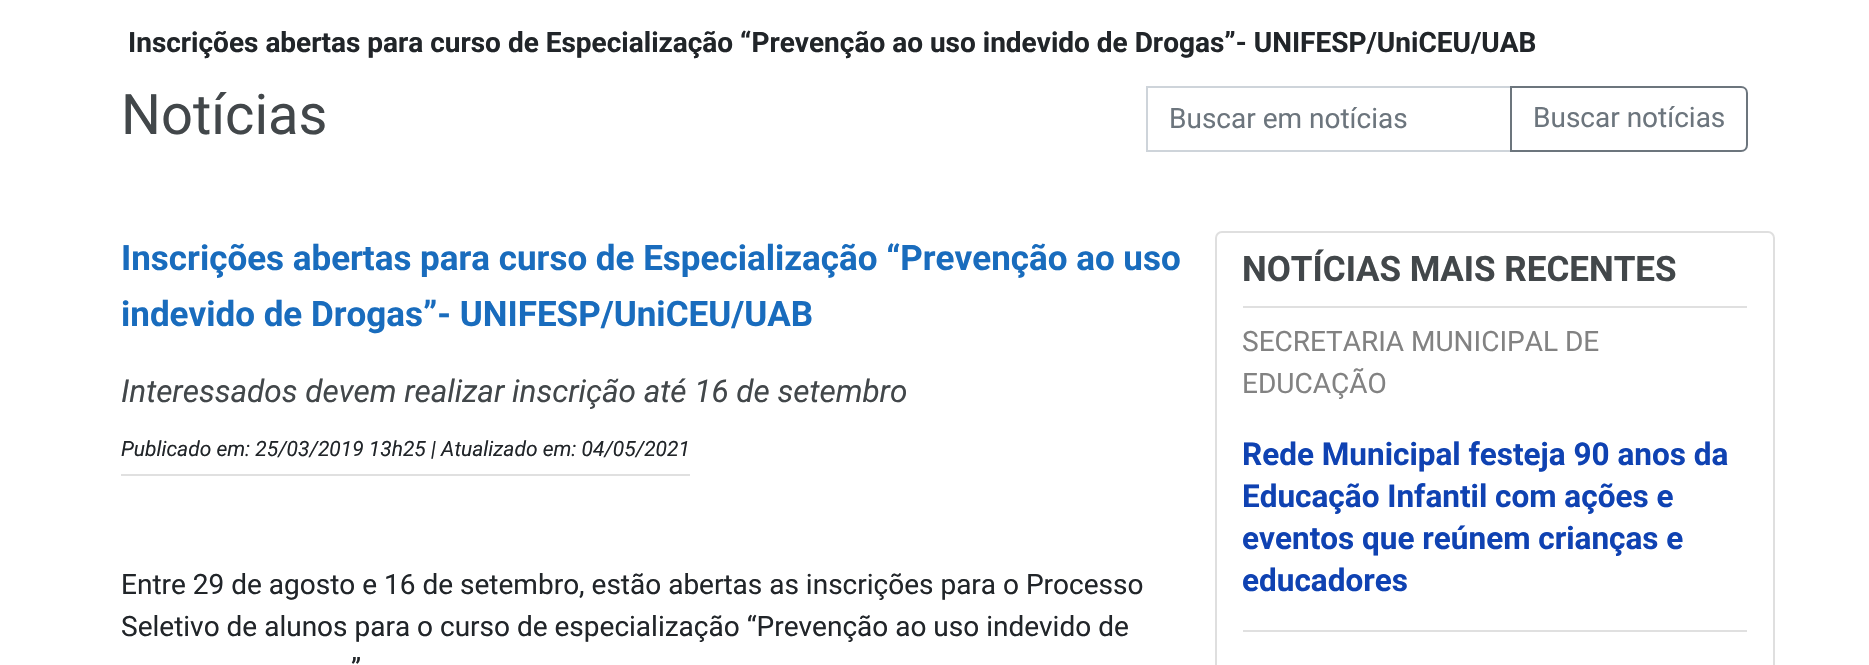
#include "include/core/SkBlurTypes.h"
#include "include/core/SkCanvas.h"
#include "include/core/SkData.h"
#include "include/core/SkFont.h"
#include "include/core/SkFontMgr.h"
#include "include/core/SkImage.h"
#include "include/core/SkMaskFilter.h"
#include "include/core/SkPaint.h"
#include "include/core/SkPathBuilder.h"
#include "include/core/SkTextBlob.h"
#include "include/effects/SkDashPathEffect.h"
#include "include/effects/SkGradientShader.h"
#include "include/utils/SkParsePath.h"

extern sk_sp<SkFontMgr> fontMgr;

void draw(SkCanvas* canvas) {
  SkPaint p;
  p.setAntiAlias(true);
  canvas->clear(SK_ColorWHITE);
  p.setStyle(SkPaint::kStroke_Style);
  p.setStrokeWidth(2);
  p.setColor(SkColorSetRGB(206, 212, 218));
  canvas->drawRect(SkRect::MakeLTRB(1147, 87, 1511, 151), p);
  p.setColor(SkColorSetRGB(108, 117, 125));
  canvas->drawPath(SkPathBuilder().moveTo(1511, 87).lineTo(1741, 87).cubicTo(1744.5f, 87, 1747, 89.5f, 1747, 93).lineTo(1747, 145).cubicTo(1747, 148.5f, 1744.5f, 151, 1741, 151).lineTo(1511, 151).close().detach(), p);
  p.setStyle(SkPaint::kFill_Style);
  p.setColor(SkColorSetRGB(224, 224, 224));
  canvas->drawRect(SkRect::MakeLTRB(121, 474, 690, 476), p);
  p.setStyle(SkPaint::kStroke_Style);
  p.setColor(SkColorSetRGB(223, 223, 223));
  canvas->drawRoundRect(SkRect::MakeLTRB(1216, 232, 1774, 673), 6, 6, p);
  p.setStyle(SkPaint::kFill_Style);
  p.setColor(SkColorSetRGB(224, 224, 224));
  canvas->drawRect(SkRect::MakeLTRB(1243, 306, 1747, 308), p);
  canvas->drawRect(SkRect::MakeLTRB(1243, 630, 1747, 632), p);
  SkFont font1(fontMgr->matchFamilyStyle("Roboto", SkFontStyle::Bold()), 28);
  font1.setSubpixel(true);
  p.setColor(SkColorSetRGB(33, 37, 41));
  canvas->drawString("Inscrições abertas para curso de Especialização “Prevenção ao uso indevido de Drogas”- UNIFESP/UniCEU/UAB", 128, 52, font1, p);
  SkFont font2(fontMgr->matchFamilyStyle("Roboto", SkFontStyle::Normal()), 56);
  font2.setSubpixel(true);
  p.setColor(SkColorSetRGB(66, 71, 74));
  canvas->drawString("Notícias", 121, 134, font2, p);
  SkFont font3(fontMgr->matchFamilyStyle("Roboto", SkFontStyle::Normal()), 28);
  font3.setSubpixel(true);
  p.setColor(SkColorSetRGB(108, 117, 125));
  canvas->drawString("Buscar em notícias", 1169, 128, font3, p);
  canvas->drawString("Buscar notícias", 1533, 127, font3, p);
  SkFont font4(fontMgr->matchFamilyStyle("Roboto", SkFontStyle::Bold()), 35);
  font4.setSubpixel(true);
  p.setColor(SkColorSetRGB(25, 108, 189));
  canvas->drawString("Inscrições abertas para curso de Especialização “Prevenção ao uso", 121, 270, font4, p);
  canvas->drawString("indevido de Drogas”- UNIFESP/UniCEU/UAB", 121, 326, font4, p);
  SkFont font5(fontMgr->matchFamilyStyle("Roboto", SkFontStyle::Italic()), 31.5f);
  font5.setSubpixel(true);
  p.setColor(SkColorSetRGB(66, 71, 74));
  canvas->drawString("Interessados devem realizar inscrição até 16 de setembro", 121, 402, font5, p);
  SkFont font6(fontMgr->matchFamilyStyle("Roboto", SkFontStyle::Italic()), 21);
  font6.setSubpixel(true);
  p.setColor(SkColorSetRGB(33, 37, 41));
  canvas->drawString("Publicado em: 25/03/2019 13h25 | Atualizado em: 04/05/2021", 121, 456, font6, p);
  canvas->drawString("Entre 29 de agosto e 16 de setembro, estão abertas as inscrições para o Processo", 121, 594, font3, p);
  canvas->drawString("Seletivo de alunos para o curso de especialização “Prevenção ao uso indevido de", 121, 636, font3, p);
  canvas->drawString("”", 351, 678, font3, p);
  p.setColor(SkColorSetRGB(66, 71, 74));
  canvas->drawString("NOTÍCIAS MAIS RECENTES", 1242, 281, font4, p);
  p.setColor(SkColorSetRGB(130, 130, 130));
  canvas->drawString("SECRETARIA MUNICIPAL DE", 1242, 351, font3, p);
  canvas->drawString("EDUCAÇÃO", 1242, 393, font3, p);
  SkFont font7(fontMgr->matchFamilyStyle("Roboto", SkFontStyle::Bold()), 31.5f);
  font7.setSubpixel(true);
  p.setColor(SkColorSetRGB(15, 66, 178));
  canvas->drawString("Rede Municipal festeja 90 anos da", 1242, 465, font7, p);
  canvas->drawString("Educação Infantil com ações e", 1242, 507, font7, p);
  canvas->drawString("eventos que reúnem crianças e", 1242, 549, font7, p);
  canvas->drawString("educadores", 1242, 591, font7, p);
}
